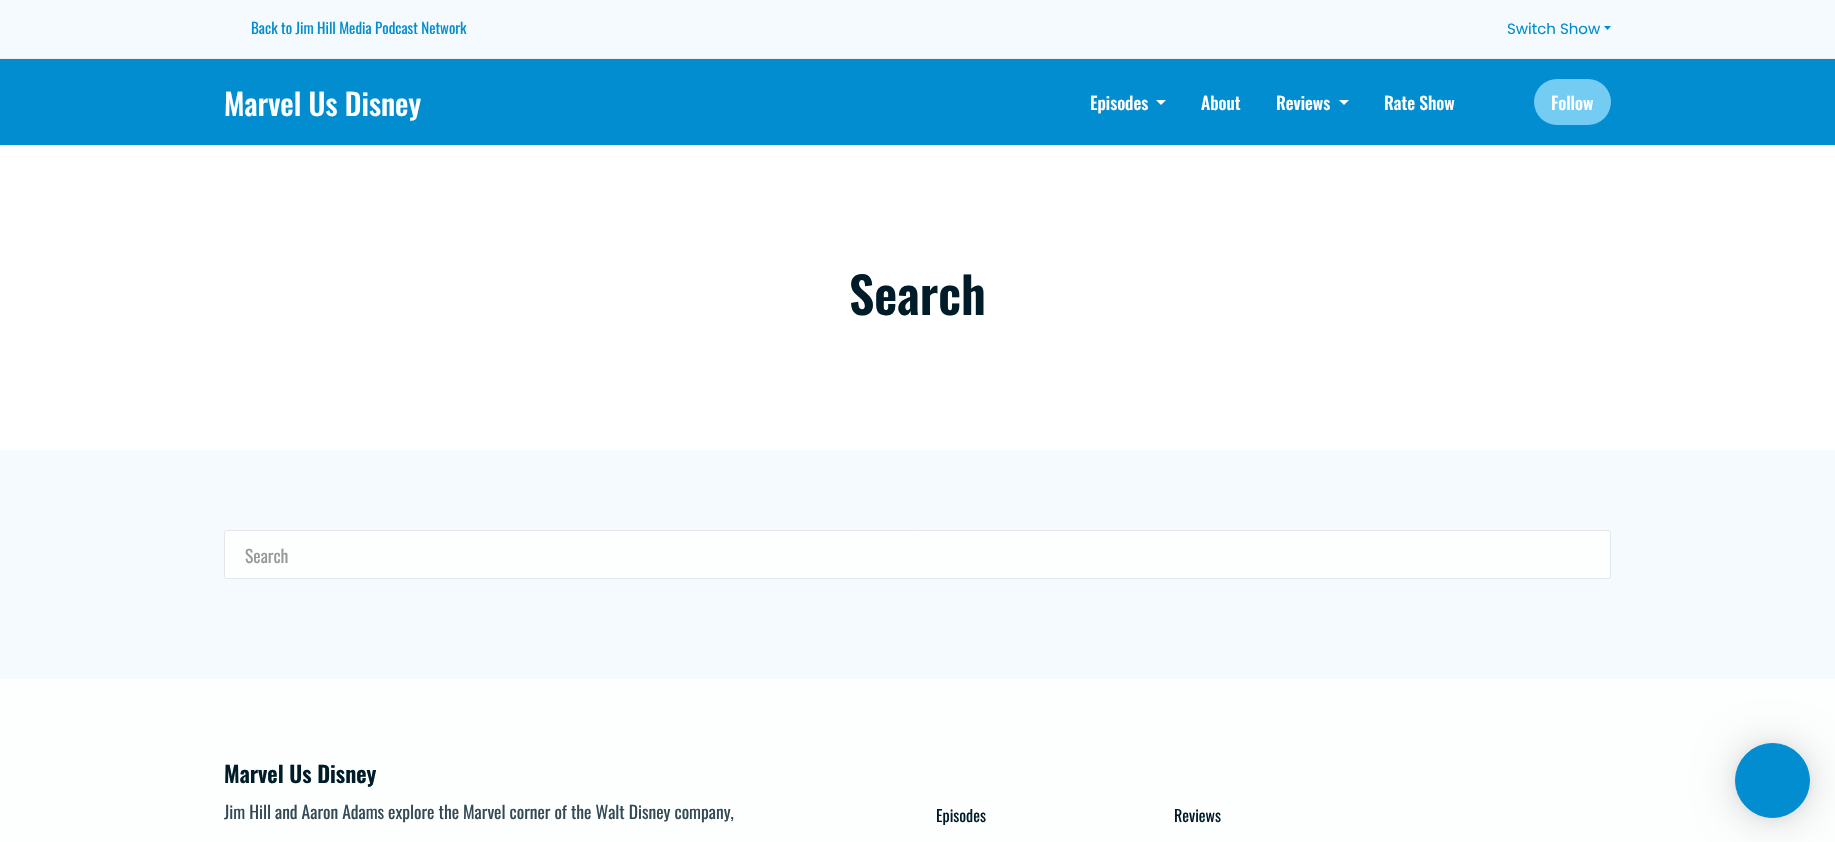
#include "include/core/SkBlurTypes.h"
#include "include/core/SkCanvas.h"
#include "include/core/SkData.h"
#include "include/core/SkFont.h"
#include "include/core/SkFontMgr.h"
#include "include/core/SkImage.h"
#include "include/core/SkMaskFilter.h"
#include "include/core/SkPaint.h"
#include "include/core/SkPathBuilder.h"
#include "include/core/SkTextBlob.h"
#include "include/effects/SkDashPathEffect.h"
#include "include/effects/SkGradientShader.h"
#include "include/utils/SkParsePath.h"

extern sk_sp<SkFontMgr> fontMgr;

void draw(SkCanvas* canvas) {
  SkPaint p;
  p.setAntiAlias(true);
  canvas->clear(SkColorSetRGB(253, 254, 254));
  p.setColor(SkColorSetRGB(244, 250, 253));
  canvas->drawRect(SkRect::MakeLTRB(0, 0, 1835, 679), p);
  p.setColor(SkColorSetRGB(241, 241, 241));
  canvas->drawRect(SkRect::MakeLTRB(0, 58, 1835, 59), p);
  p.setColor(SkColorSetRGB(2, 141, 208));
  canvas->drawPath(SkPathBuilder().moveTo(1604, 26).lineTo(1611, 26).lineTo(1607.5f, 30).close().detach(), p);
  canvas->drawRect(SkRect::MakeLTRB(0, 59, 1835, 145), p);
  p.setColor(SK_ColorWHITE);
  canvas->drawPath(SkPathBuilder().moveTo(1156, 100).lineTo(1166, 100).lineTo(1161, 105).close().detach(), p);
  canvas->drawPath(SkPathBuilder().moveTo(1339, 100).lineTo(1349, 100).lineTo(1344, 105).close().detach(), p);
  p.setColor(SkColorSetRGB(116, 204, 242));
  canvas->drawRoundRect(SkRect::MakeLTRB(1534, 79, 1611, 125), 23, 23, p);
  p.setColor(SK_ColorWHITE);
  canvas->drawRect(SkRect::MakeLTRB(0, 145, 1835, 450), p);
  p.setColor(SkColorSetRGB(253, 254, 254));
  canvas->drawRoundRect(SkRect::MakeLTRB(224.5f, 530.5f, 1610.5f, 578.5f), 2, 2, p);
  p.setStyle(SkPaint::kStroke_Style);
  p.setStrokeWidth(1);
  p.setColor(SkColorSetRGB(228, 231, 233));
  canvas->drawRoundRect(SkRect::MakeLTRB(224.5f, 530.5f, 1610.5f, 578.5f), 2, 2, p);
  p.setStyle(SkPaint::kFill_Style);
  p.setColor(SkColorSetARGB(41, 0, 0, 0));
  p.setMaskFilter(SkMaskFilter::MakeBlur(kNormal_SkBlurStyle, 20));
  canvas->drawRoundRect(SkRect::MakeLTRB(1735, 745, 1810, 820), 37.5f, 37.5f, p);
  p.setMaskFilter(nullptr);
  p.setColor(SkColorSetARGB(15, 0, 0, 0));
  p.setMaskFilter(SkMaskFilter::MakeBlur(kNormal_SkBlurStyle, 4));
  canvas->drawRoundRect(SkRect::MakeLTRB(1735, 744, 1810, 819), 37.5f, 37.5f, p);
  p.setMaskFilter(nullptr);
  p.setColor(SkColorSetRGB(2, 141, 208));
  canvas->drawCircle(1772.5f, 780.5f, 37, p);
  p.setStyle(SkPaint::kStroke_Style);
  canvas->drawCircle(1772.5f, 780.5f, 37, p);
  SkFont font1(fontMgr->matchFamilyStyle("Oswald", SkFontStyle::Normal()), 15);
  font1.setSubpixel(true);
  p.setStyle(SkPaint::kFill_Style);
  canvas->drawString("Back to Jim Hill Media Podcast Network", 251, 34, font1, p);
  SkFont font2(fontMgr->matchFamilyStyle("Poppins", SkFontStyle::Normal()), 15);
  font2.setSubpixel(true);
  canvas->drawString("Switch Show", 1507, 34, font2, p);
  SkFont font3(fontMgr->matchFamilyStyle("Oswald", SkFontStyle(500, SkFontStyle::kNormal_Width, SkFontStyle::kUpright_Slant)), 30);
  font3.setSubpixel(true);
  p.setColor(SK_ColorWHITE);
  canvas->drawString("Marvel Us Disney", 224, 116, font3, p);
  SkFont font4(fontMgr->matchFamilyStyle("Oswald", SkFontStyle(500, SkFontStyle::kNormal_Width, SkFontStyle::kUpright_Slant)), 17.5f);
  font4.setSubpixel(true);
  canvas->drawString("Episodes", 1090, 110, font4, p);
  canvas->drawString("About", 1201, 110, font4, p);
  canvas->drawString("Reviews", 1276, 110, font4, p);
  canvas->drawString("Rate Show", 1384, 110, font4, p);
  canvas->drawString("Follow", 1551, 110, font4, p);
  SkFont font5(fontMgr->matchFamilyStyle("Oswald", SkFontStyle(600, SkFontStyle::kNormal_Width, SkFontStyle::kUpright_Slant)), 50);
  font5.setSubpixel(true);
  p.setColor(SkColorSetRGB(0, 28, 41));
  canvas->drawString("Search", 849, 315, font5, p);
  SkFont font6(fontMgr->matchFamilyStyle("Oswald", SkFontStyle::Normal()), 17.5f);
  font6.setSubpixel(true);
  p.setColor(SkColorSetRGB(152, 152, 152));
  canvas->drawString("Search", 245, 563, font6, p);
  SkFont font7(fontMgr->matchFamilyStyle("Oswald", SkFontStyle(600, SkFontStyle::kNormal_Width, SkFontStyle::kUpright_Slant)), 22.5f);
  font7.setSubpixel(true);
  p.setColor(SkColorSetRGB(0, 28, 41));
  canvas->drawString("Marvel Us Disney", 224, 783, font7, p);
  p.setColor(SkColorSetRGB(51, 73, 84));
  canvas->drawString("Jim Hill and Aaron Adams explore the Marvel corner of the Walt Disney company,", 224, 819, font6, p);
  SkFont font8(fontMgr->matchFamilyStyle("Oswald", SkFontStyle::Normal()), 16);
  font8.setSubpixel(true);
  p.setColor(SkColorSetRGB(0, 28, 41));
  canvas->drawString("Episodes", 936, 822, font8, p);
  canvas->drawString("Reviews", 1174, 822, font8, p);
}
